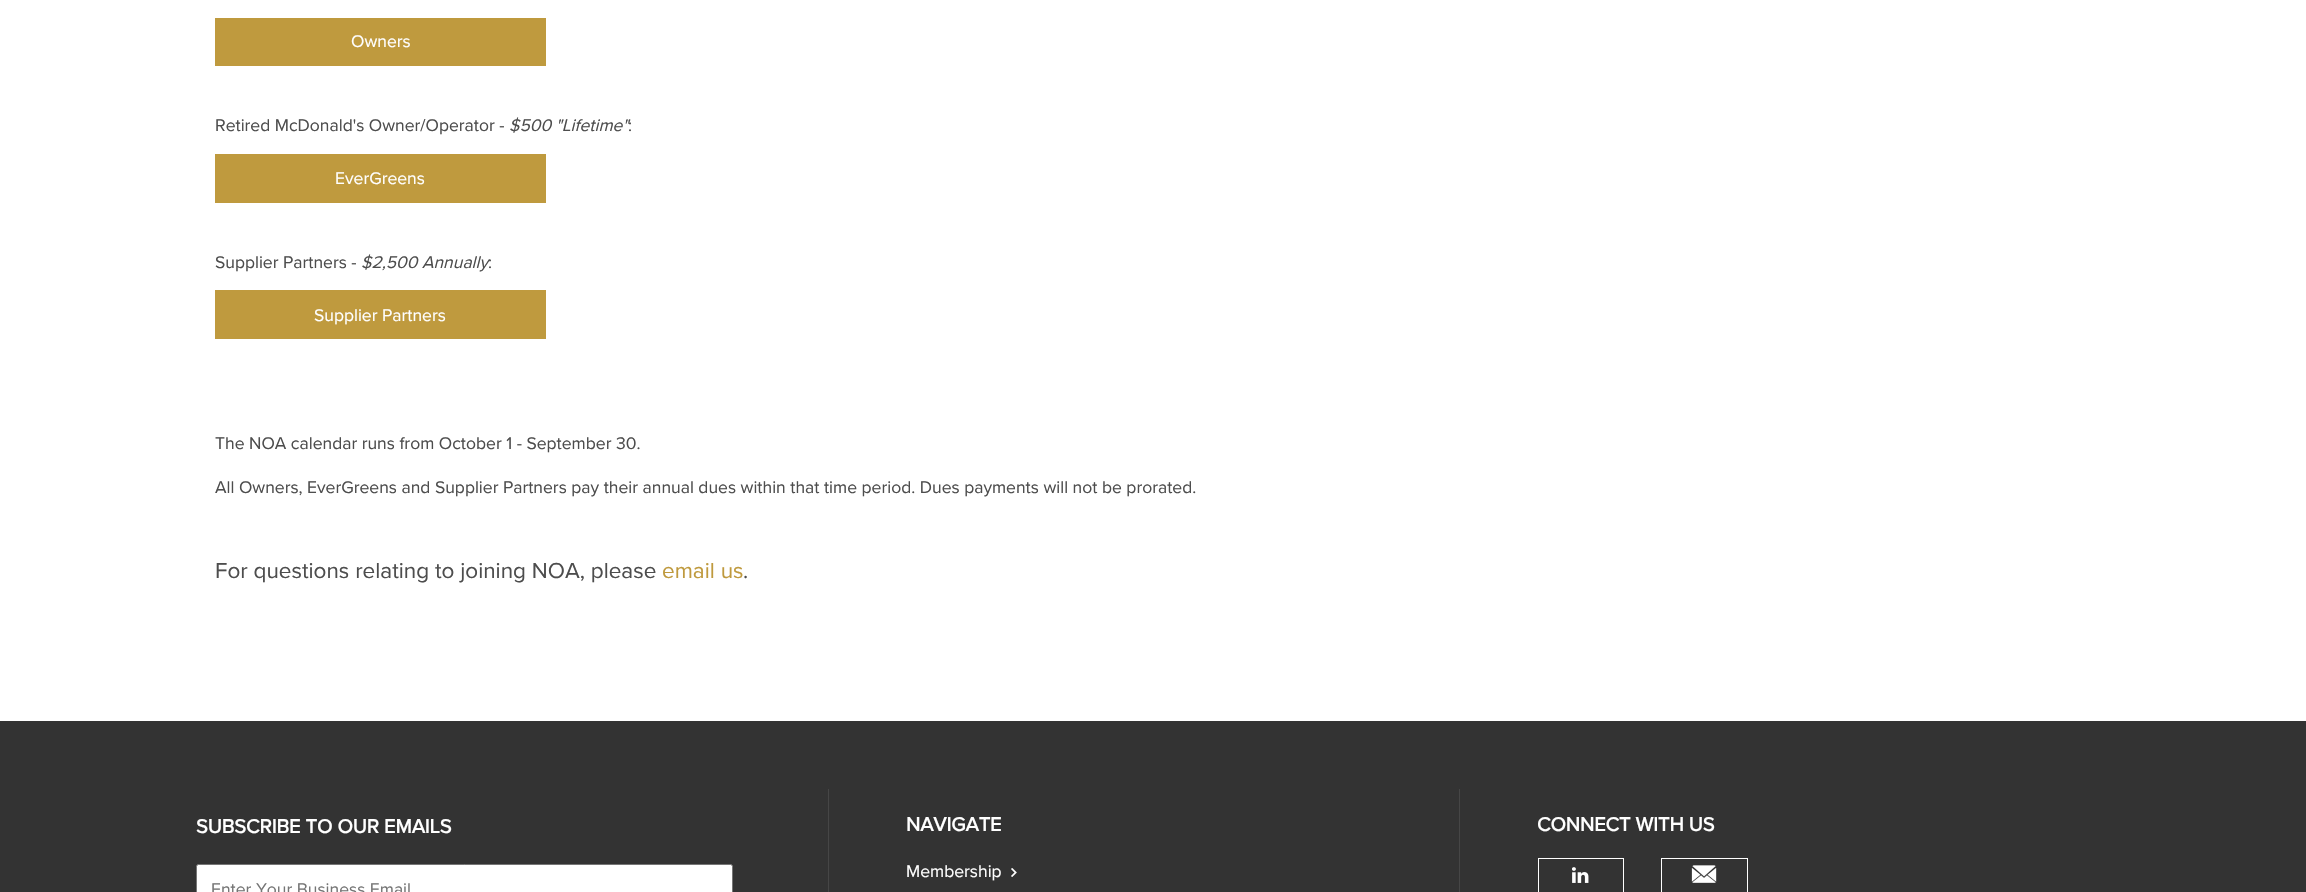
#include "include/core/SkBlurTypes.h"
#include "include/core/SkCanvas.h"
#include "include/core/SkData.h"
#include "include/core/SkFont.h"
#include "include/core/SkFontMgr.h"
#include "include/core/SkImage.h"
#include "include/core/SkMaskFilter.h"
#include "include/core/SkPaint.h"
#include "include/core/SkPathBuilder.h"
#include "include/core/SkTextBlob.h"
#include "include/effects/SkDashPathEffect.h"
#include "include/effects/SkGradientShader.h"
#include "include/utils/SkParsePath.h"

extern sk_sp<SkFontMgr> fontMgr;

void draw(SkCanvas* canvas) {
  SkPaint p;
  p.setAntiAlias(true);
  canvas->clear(SK_ColorWHITE);
  p.setColor(SkColorSetRGB(191, 154, 62));
  canvas->drawRect(SkRect::MakeLTRB(215, 18, 546, 66), p);
  canvas->drawRect(SkRect::MakeLTRB(215, 154, 546, 203), p);
  canvas->drawRect(SkRect::MakeLTRB(215, 290, 546, 339), p);
  p.setColor(SkColorSetRGB(51, 51, 51));
  canvas->drawRect(SkRect::MakeLTRB(0, 721, 2306, 892), p);
  p.setColor(SK_ColorWHITE);
  canvas->drawRoundRect(SkRect::MakeLTRB(196.5f, 864.5f, 732.5f, 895.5f), 2, 2, p);
  p.setStyle(SkPaint::kStroke_Style);
  p.setStrokeWidth(1);
  p.setColor(SkColorSetRGB(118, 118, 118));
  canvas->drawRoundRect(SkRect::MakeLTRB(196.5f, 864.5f, 732.5f, 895.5f), 2, 2, p);
  p.setStyle(SkPaint::kFill_Style);
  p.setColor(SkColorSetRGB(70, 70, 70));
  canvas->drawRect(SkRect::MakeLTRB(828, 789, 829, 892), p);
  canvas->drawRect(SkRect::MakeLTRB(1459, 789, 1460, 892), p);
  p.setStyle(SkPaint::kStroke_Style);
  p.setColor(SK_ColorWHITE);
  canvas->drawRect(SkRect::MakeLTRB(1538.5f, 858.5f, 1623.5f, 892.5f), p);
  canvas->drawImageRect(SkImages::DeferredFromEncodedData(SkData::MakeFromFileName("images/1.png")), SkRect::MakeLTRB(1572, 867, 1589, 883), SkSamplingOptions());
  canvas->drawRect(SkRect::MakeLTRB(1661.5f, 858.5f, 1747.5f, 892.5f), p);
  SkFont font1(fontMgr->matchFamilyStyle("Proxima Nova", SkFontStyle::Normal()), 17.5f);
  font1.setSubpixel(true);
  p.setStyle(SkPaint::kFill_Style);
  canvas->drawString("Owners", 351, 47, font1, p);
  p.setColor(SkColorSetRGB(77, 77, 77));
  canvas->drawString("Retired McDonald's Owner/Operator -", 215, 131, font1, p);
  SkFont font2(fontMgr->matchFamilyStyle("Proxima Nova", SkFontStyle::Italic()), 17.5f);
  font2.setSubpixel(true);
  canvas->drawString("$500 \"Lifetime\"", 509, 131, font2, p);
  canvas->drawString(":", 628, 131, font1, p);
  p.setColor(SK_ColorWHITE);
  canvas->drawString("EverGreens", 335, 184, font1, p);
  p.setColor(SkColorSetRGB(77, 77, 77));
  canvas->drawString("Supplier Partners -", 215, 268, font1, p);
  canvas->drawString("$2,500 Annually", 361, 268, font2, p);
  canvas->drawString(":", 488, 268, font1, p);
  p.setColor(SK_ColorWHITE);
  canvas->drawString("Supplier Partners", 314, 321, font1, p);
  p.setColor(SkColorSetRGB(77, 77, 77));
  canvas->drawString("The NOA calendar runs from October 1 - September 30.", 215, 449, font1, p);
  canvas->drawString("All Owners, EverGreens and Supplier Partners pay their annual dues within that time period. Dues payments will not be prorated.", 215, 493, font1, p);
  SkFont font3(fontMgr->matchFamilyStyle("Proxima Nova", SkFontStyle::Normal()), 22.5f);
  font3.setSubpixel(true);
  canvas->drawString("For questions relating to joining NOA, please", 215, 578, font3, p);
  p.setColor(SkColorSetRGB(191, 154, 62));
  canvas->drawString("email us", 662, 578, font3, p);
  p.setColor(SkColorSetRGB(77, 77, 77));
  canvas->drawString(".", 743, 578, font3, p);
  SkFont font4(fontMgr->matchFamilyStyle("Proxima Nova", SkFontStyle::Bold()), 20);
  font4.setSubpixel(true);
  p.setColor(SK_ColorWHITE);
  canvas->drawString("SUBSCRIBE TO OUR EMAILS", 196, 833, font4, p);
  p.setColor(SkColorSetRGB(117, 117, 117));
  canvas->drawString("Enter Your Business Email", 211, 895, font1, p);
  p.setColor(SK_ColorWHITE);
  canvas->drawString("NAVIGATE", 906, 831, font4, p);
  canvas->drawString("Membership", 906, 877, font1, p);
  SkFont font5(fontMgr->matchFamilyStyle("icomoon", SkFontStyle::Normal()), 19);
  font5.setSubpixel(true);
  canvas->save();
  canvas->rotate(-90, 1022, 882);
  canvas->drawString("9", 1022, 882, font5, p);
  canvas->restore();
  canvas->drawString("CONNECT WITH US", 1537, 831, font4, p);
  SkFont font6(fontMgr->matchFamilyStyle("icomoon", SkFontStyle::Normal()), 32);
  font6.setSubpixel(true);
  canvas->drawString("8", 1688, 888, font6, p);
}
